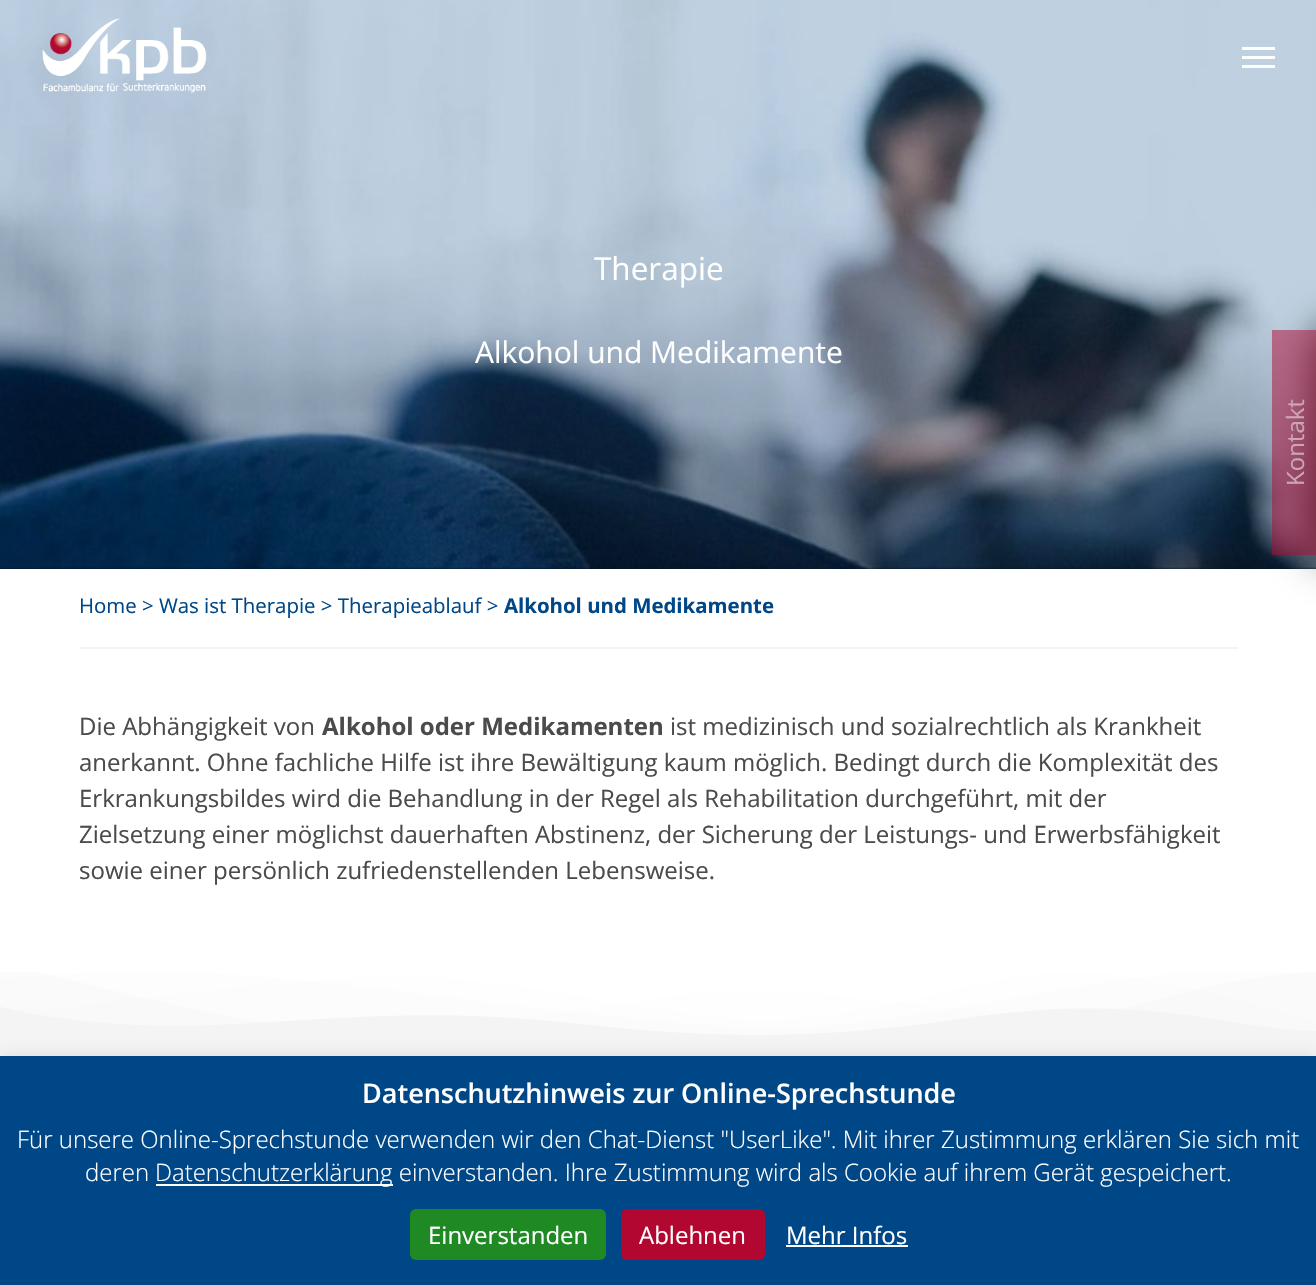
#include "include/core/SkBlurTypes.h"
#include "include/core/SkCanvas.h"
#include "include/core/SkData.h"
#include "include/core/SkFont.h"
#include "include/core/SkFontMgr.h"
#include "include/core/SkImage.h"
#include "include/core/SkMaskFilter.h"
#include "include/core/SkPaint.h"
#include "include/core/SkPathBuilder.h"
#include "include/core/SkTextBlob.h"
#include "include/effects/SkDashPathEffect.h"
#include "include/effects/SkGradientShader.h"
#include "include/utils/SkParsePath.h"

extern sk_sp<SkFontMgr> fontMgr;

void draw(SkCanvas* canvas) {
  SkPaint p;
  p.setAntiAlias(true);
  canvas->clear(SK_ColorWHITE);
  p.setColor(SkColorSetRGB(0, 18, 34));
  canvas->drawRect(SkRect::MakeLTRB(0, 567, 1316, 569), p);
  canvas->drawImageRect(SkImages::DeferredFromEncodedData(SkData::MakeFromFileName("images/2.png")), SkRect::MakeLTRB(0, 0, 1316, 569), SkSamplingOptions());
  canvas->drawImageRect(SkImages::DeferredFromEncodedData(SkData::MakeFromFileName("images/1.png")), SkRect::MakeLTRB(42, 18, 207, 93), SkSamplingOptions());
  p.setColor(SK_ColorWHITE);
  canvas->drawRect(SkRect::MakeLTRB(1242, 47, 1275, 50), p);
  canvas->drawRect(SkRect::MakeLTRB(1242, 65, 1275, 68), p);
  canvas->drawRect(SkRect::MakeLTRB(1242, 56, 1275, 59), p);
  p.setColor(SkColorSetRGB(244, 244, 244));
  canvas->drawRect(SkRect::MakeLTRB(80, 647, 1238, 649), p);
  canvas->drawImageRect(SkImages::DeferredFromEncodedData(SkData::MakeFromFileName("images/3.png")), SkRect::MakeLTRB(0, 972, 1316, 1038), SkSamplingOptions());
  canvas->drawRect(SkRect::MakeLTRB(0, 1038, 1316, 1056), p);
  p.setColor(SkColorSetARGB(191, 0, 0, 0));
  p.setMaskFilter(SkMaskFilter::MakeBlur(kNormal_SkBlurStyle, 22.5f));
  canvas->drawRect(SkRect::MakeLTRB(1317, 330, 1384, 555), p);
  p.setMaskFilter(nullptr);
  p.setColor(SkColorSetARGB(128, 177, 7, 49));
  canvas->drawRect(SkRect::MakeLTRB(1272, 330, 1316, 555), p);
  p.setColor(SkColorSetARGB(77, 172, 171, 171));
  p.setMaskFilter(SkMaskFilter::MakeBlur(kNormal_SkBlurStyle, 7.5f));
  canvas->drawRect(SkRect::MakeLTRB(0, 1055, 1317, 1284), p);
  p.setMaskFilter(nullptr);
  p.setColor(SkColorSetRGB(0, 71, 135));
  canvas->drawRect(SkRect::MakeLTRB(0, 1056, 1316, 1285), p);
  p.setColor(SK_ColorWHITE);
  canvas->drawRect(SkRect::MakeLTRB(156, 1184, 393, 1186), p);
  p.setColor(SkColorSetRGB(31, 137, 36));
  canvas->drawRoundRect(SkRect::MakeLTRB(410, 1209, 606, 1260), 6, 6, p);
  p.setColor(SkColorSetRGB(177, 7, 49));
  canvas->drawRoundRect(SkRect::MakeLTRB(621, 1209, 765, 1260), 6, 6, p);
  p.setColor(SK_ColorWHITE);
  canvas->drawRect(SkRect::MakeLTRB(786, 1245, 908, 1247), p);
  SkFont font1(fontMgr->matchFamilyStyle("Open Sans", SkFontStyle::Normal()), 31.5f);
  font1.setSubpixel(true);
  canvas->drawString("Therapie", 594, 280, font1, p);
  SkFont font2(fontMgr->matchFamilyStyle("Open Sans", SkFontStyle::Normal()), 30);
  font2.setSubpixel(true);
  canvas->drawString("Alkohol und Medikamente", 475, 363, font2, p);
  SkFont font3(fontMgr->matchFamilyStyle("Open Sans", SkFontStyle::Normal()), 20.4f);
  font3.setSubpixel(true);
  p.setColor(SkColorSetRGB(0, 71, 135));
  canvas->drawString("Home > Was ist Therapie > Therapieablauf >", 79, 613, font3, p);
  SkFont font4(fontMgr->matchFamilyStyle("Open Sans", SkFontStyle::Bold()), 20.4f);
  font4.setSubpixel(true);
  canvas->drawString("Alkohol und Medikamente", 504, 613, font4, p);
  SkFont font5(fontMgr->matchFamilyStyle("Open Sans", SkFontStyle::Normal()), 24);
  font5.setSubpixel(true);
  p.setColor(SkColorSetRGB(75, 75, 75));
  canvas->drawString("Die Abhängigkeit von", 79, 735, font5, p);
  SkFont font6(fontMgr->matchFamilyStyle("Open Sans", SkFontStyle::Bold()), 24);
  font6.setSubpixel(true);
  canvas->drawString("Alkohol oder Medikamenten", 322, 735, font6, p);
  canvas->drawString("ist medizinisch und sozialrechtlich als Krankheit", 670, 735, font5, p);
  canvas->drawString("anerkannt. Ohne fachliche Hilfe ist ihre Bewältigung kaum möglich. Bedingt durch die Komplexität des", 79, 771, font5, p);
  canvas->drawString("Erkrankungsbildes wird die Behandlung in der Regel als Rehabilitation durchgeführt, mit der", 79, 807, font5, p);
  canvas->drawString("Zielsetzung einer möglichst dauerhaften Abstinenz, der Sicherung der Leistungs- und Erwerbsfähigkeit", 79, 843, font5, p);
  canvas->drawString("sowie einer persönlich zufriedenstellenden Lebensweise.", 79, 879, font5, p);
  p.setColor(SkColorSetRGB(204, 166, 181));
  canvas->save();
  canvas->rotate(-90, 1304, 486);
  canvas->drawString("Kontakt", 1304, 486, font5, p);
  canvas->restore();
  SkFont font7(fontMgr->matchFamilyStyle("Open Sans", SkFontStyle(600, SkFontStyle::kNormal_Width, SkFontStyle::kUpright_Slant)), 27);
  font7.setSubpixel(true);
  p.setColor(SK_ColorWHITE);
  canvas->drawString("Datenschutzhinweis zur Online-Sprechstunde", 362, 1103, font7, p);
  SkFont font8(fontMgr->matchFamilyStyle("Open Sans", SkFontStyle(300, SkFontStyle::kNormal_Width, SkFontStyle::kUpright_Slant)), 24);
  font8.setSubpixel(true);
  canvas->drawString("Für unsere Online-Sprechstunde verwenden wir den Chat-Dienst \"UserLike\". Mit ihrer Zustimmung erklären Sie sich mit", 17, 1148, font8, p);
  canvas->drawString("deren", 85, 1181, font8, p);
  canvas->drawString("Datenschutzerklärung einverstanden. Ihre Zustimmung wird als Cookie auf ihrem Gerät gespeichert.", 155, 1181, font8, p);
  canvas->drawString("Einverstanden", 428, 1244, font5, p);
  canvas->drawString("Ablehnen", 639, 1244, font5, p);
  canvas->drawString("Mehr Infos", 786, 1244, font5, p);
}
